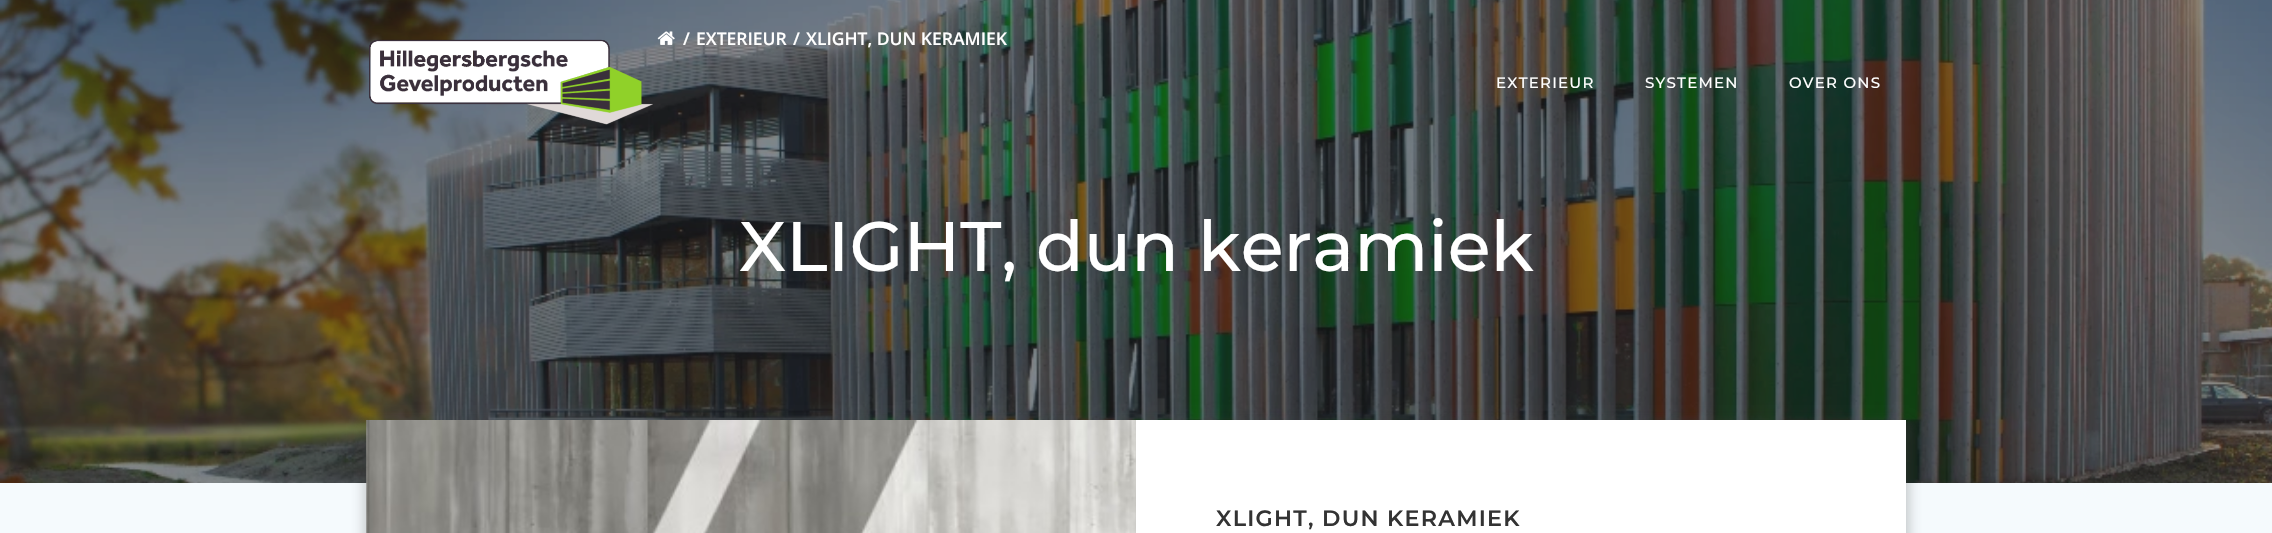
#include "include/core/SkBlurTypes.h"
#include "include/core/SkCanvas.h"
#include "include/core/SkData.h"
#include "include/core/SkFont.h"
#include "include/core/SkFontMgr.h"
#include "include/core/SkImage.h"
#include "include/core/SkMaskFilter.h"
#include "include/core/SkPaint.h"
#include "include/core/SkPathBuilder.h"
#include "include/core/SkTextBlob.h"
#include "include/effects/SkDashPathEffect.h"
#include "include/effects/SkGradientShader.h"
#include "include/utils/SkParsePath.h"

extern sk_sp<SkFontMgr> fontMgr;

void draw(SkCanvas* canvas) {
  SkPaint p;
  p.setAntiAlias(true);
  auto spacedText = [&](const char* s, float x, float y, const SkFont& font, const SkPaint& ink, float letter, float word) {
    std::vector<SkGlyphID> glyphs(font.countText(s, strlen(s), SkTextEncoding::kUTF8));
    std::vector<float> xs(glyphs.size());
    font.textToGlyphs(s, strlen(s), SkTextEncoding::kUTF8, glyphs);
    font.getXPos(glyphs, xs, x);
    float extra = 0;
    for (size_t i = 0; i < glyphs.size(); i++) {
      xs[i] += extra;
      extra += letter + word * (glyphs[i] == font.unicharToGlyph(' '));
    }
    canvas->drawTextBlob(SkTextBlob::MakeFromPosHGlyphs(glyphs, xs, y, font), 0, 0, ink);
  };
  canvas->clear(SK_ColorWHITE);
  canvas->drawImageRect(SkImages::DeferredFromEncodedData(SkData::MakeFromFileName("images/3.png")), SkRect::MakeLTRB(0, 0, 2272, 483), SkSamplingOptions());
  canvas->drawImageRect(SkImages::DeferredFromEncodedData(SkData::MakeFromFileName("images/1.png")), SkRect::MakeLTRB(369, 39, 653, 125), SkSamplingOptions());
  canvas->drawImageRect(SkImages::DeferredFromEncodedData(SkData::MakeFromFileName("images/2.png")), SkRect::MakeLTRB(657, 31, 675, 45), SkSamplingOptions());
  p.setColor(SkColorSetRGB(245, 250, 253));
  canvas->drawRect(SkRect::MakeLTRB(0, 483, 2272, 533), p);
  p.setColor(SkColorSetARGB(77, 74, 74, 74));
  p.setMaskFilter(SkMaskFilter::MakeBlur(kNormal_SkBlurStyle, 6));
  canvas->drawRect(SkRect::MakeLTRB(364, 423, 1909, 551), p);
  p.setMaskFilter(nullptr);
  canvas->drawImageRect(SkImages::DeferredFromEncodedData(SkData::MakeFromFileName("images/4.png")), SkRect::MakeLTRB(366, 420, 1136, 533), SkSamplingOptions());
  p.setColor(SK_ColorWHITE);
  canvas->drawRect(SkRect::MakeLTRB(1136, 420, 1906, 533), p);
  SkFont font1(fontMgr->matchFamilyStyle("Open Sans", SkFontStyle(600, SkFontStyle::kNormal_Width, SkFontStyle::kUpright_Slant)), 17.5f);
  font1.setSubpixel(true);
  canvas->drawString("/", 683, 45, font1, p);
  canvas->drawString("EXTERIEUR", 696, 45, font1, p);
  canvas->drawString("/", 793, 45, font1, p);
  canvas->drawString("XLIGHT, DUN KERAMIEK", 806, 45, font1, p);
  SkFont font2(fontMgr->matchFamilyStyle("Montserrat", SkFontStyle(500, SkFontStyle::kNormal_Width, SkFontStyle::kUpright_Slant)), 15);
  font2.setSubpixel(true);
  spacedText("EXTERIEUR", 1496, 88, font2, p, 1.25f, 0);
  spacedText("SYSTEMEN", 1645, 88, font2, p, 1.25f, 0);
  spacedText("OVER ONS", 1789, 88, font2, p, 1.25f, 0);
  SkFont font3(fontMgr->matchFamilyStyle("Montserrat", SkFontStyle(500, SkFontStyle::kNormal_Width, SkFontStyle::kUpright_Slant)), 70);
  font3.setSubpixel(true);
  canvas->drawString("XLIGHT, dun keramiek", 739, 271, font3, p);
  SkFont font4(fontMgr->matchFamilyStyle("Montserrat", SkFontStyle(600, SkFontStyle::kNormal_Width, SkFontStyle::kUpright_Slant)), 22.25f);
  font4.setSubpixel(true);
  p.setColor(SkColorSetRGB(51, 51, 51));
  spacedText("XLIGHT, DUN KERAMIEK", 1216, 526, font4, p, 1.25f, 0);
}
